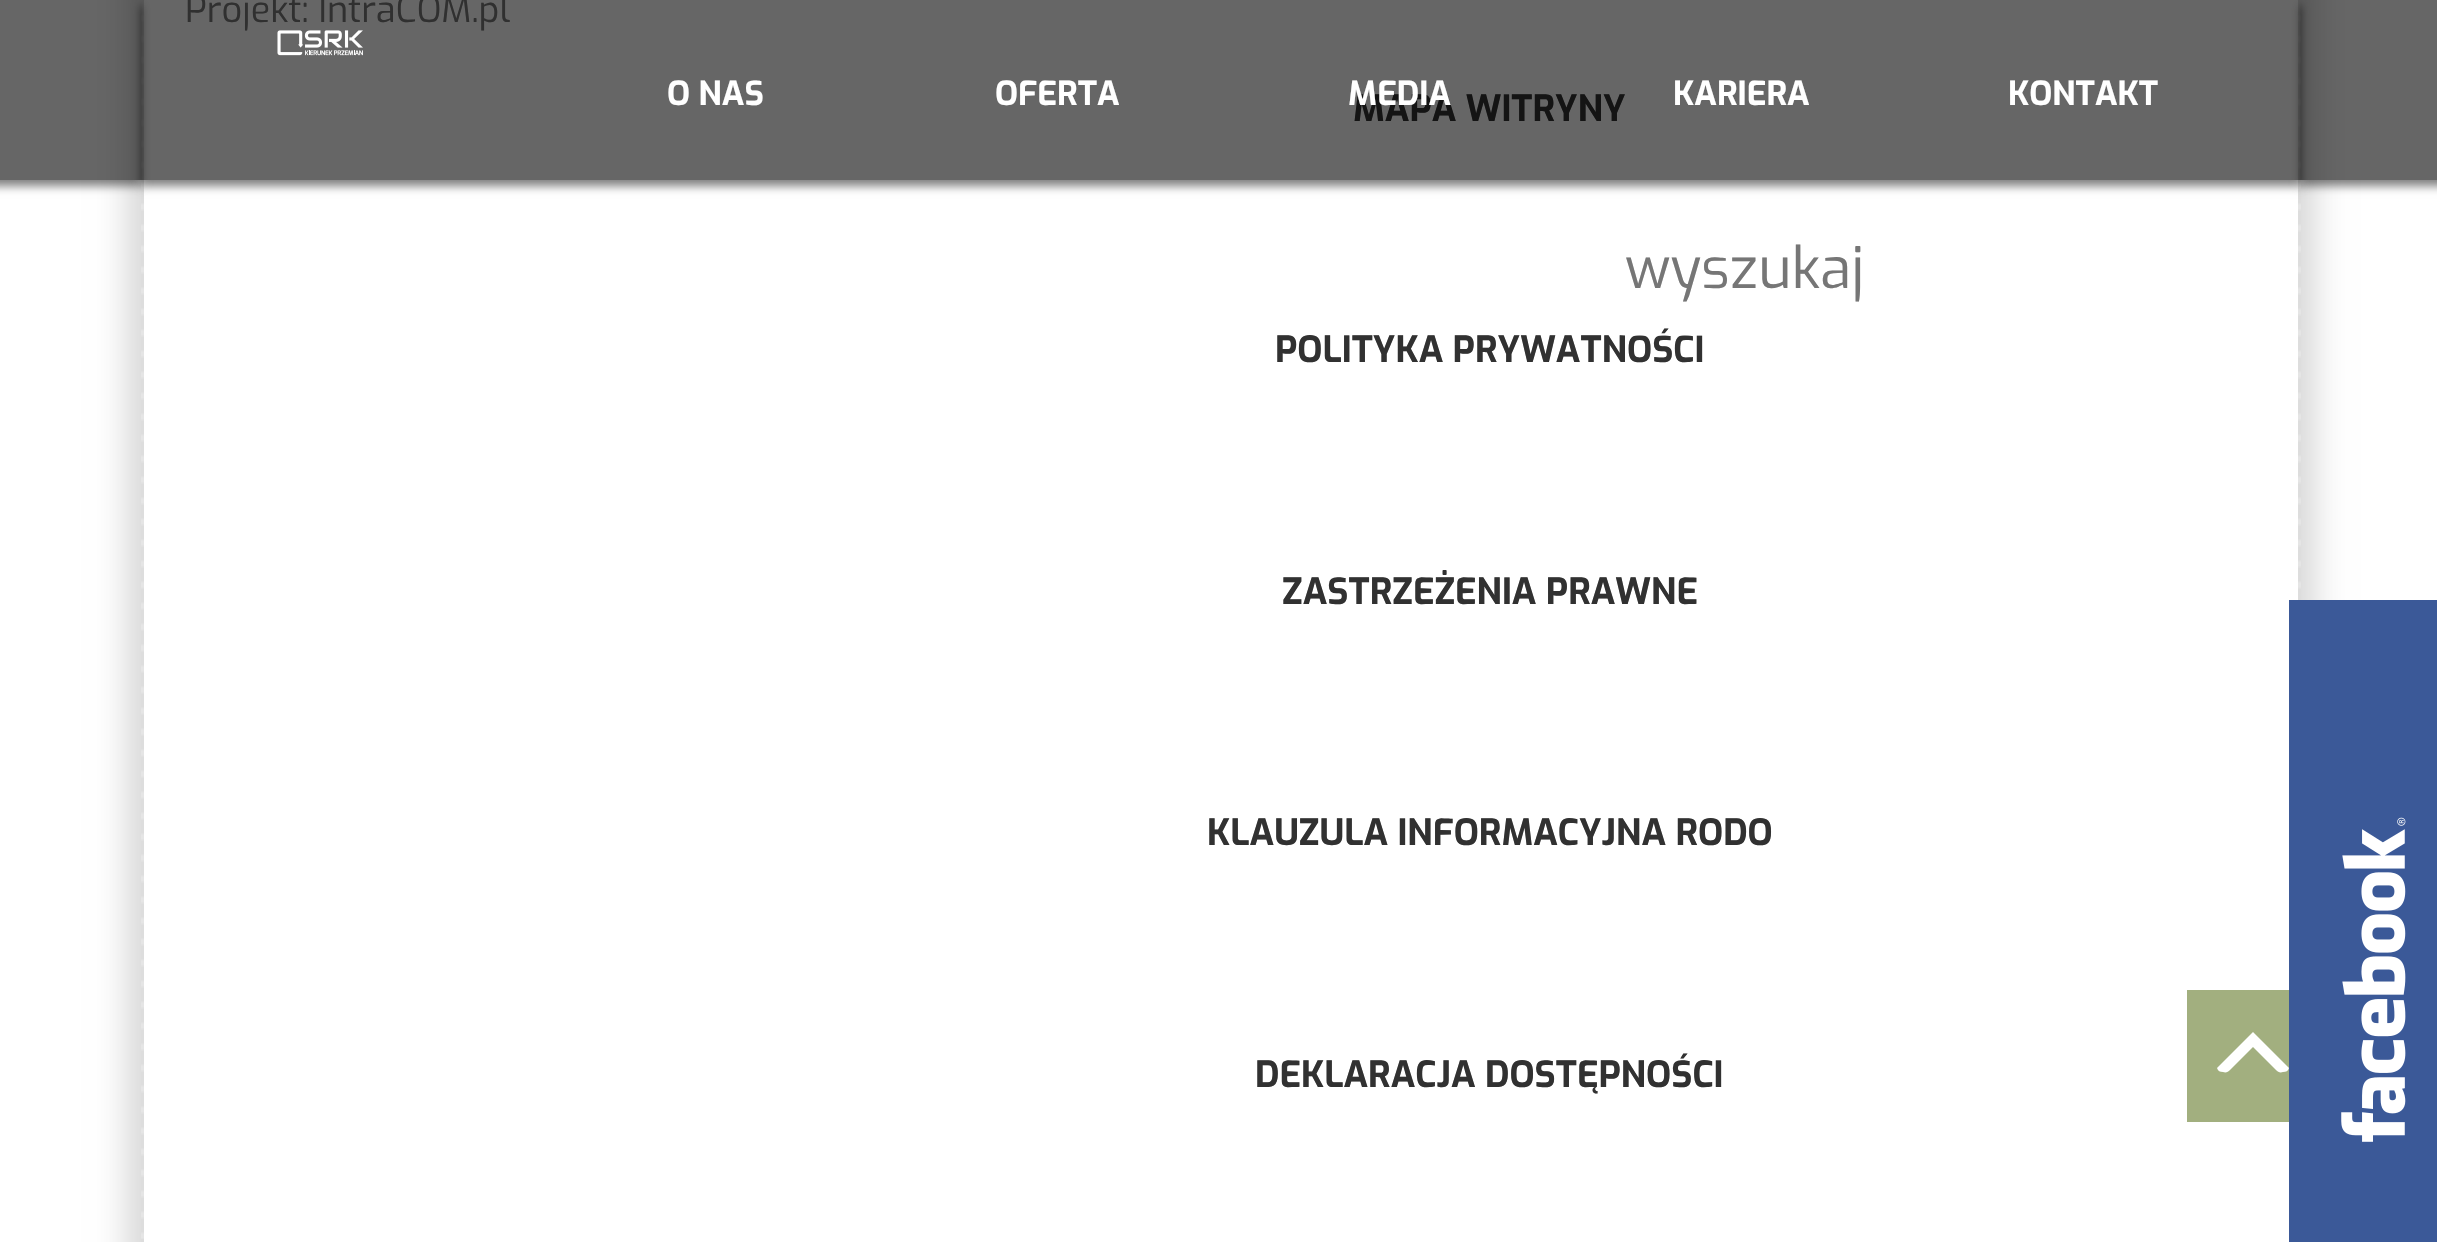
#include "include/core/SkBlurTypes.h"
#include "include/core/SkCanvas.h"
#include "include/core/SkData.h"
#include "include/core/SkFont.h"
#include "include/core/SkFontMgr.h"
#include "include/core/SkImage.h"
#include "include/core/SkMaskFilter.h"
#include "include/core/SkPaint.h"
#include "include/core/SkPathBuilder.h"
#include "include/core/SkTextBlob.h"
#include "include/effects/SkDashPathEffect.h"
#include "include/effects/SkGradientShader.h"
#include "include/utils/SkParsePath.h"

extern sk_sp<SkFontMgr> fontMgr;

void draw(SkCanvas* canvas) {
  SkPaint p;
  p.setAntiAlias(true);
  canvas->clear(SK_ColorWHITE);
  canvas->save();
  canvas->clipPath(SkPathBuilder(SkPathFillType::kEvenOdd).moveTo(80, 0).lineTo(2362, 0).lineTo(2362, 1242).lineTo(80, 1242).close().moveTo(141, -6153).lineTo(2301, -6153).lineTo(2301, 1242).lineTo(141, 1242).close().detach(), true);
  p.setColor(SkColorSetARGB(38, 0, 0, 0));
  p.setMaskFilter(SkMaskFilter::MakeBlur(kNormal_SkBlurStyle, 15));
  canvas->drawRect(SkRect::MakeLTRB(126, -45, 2316, 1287), p);
  p.setMaskFilter(nullptr);
  canvas->restore();
  p.setColor(SkColorSetRGB(221, 221, 221));
  canvas->drawRect(SkRect::MakeLTRB(141, 0, 144, 1242), p);
  canvas->drawImageRect(SkImages::DeferredFromEncodedData(SkData::MakeFromFileName("images/1.png")), SkRect::MakeLTRB(141, 15, 144, 1239), SkSamplingOptions());
  canvas->drawRect(SkRect::MakeLTRB(2298, 0, 2301, 600), p);
  canvas->drawImageRect(SkImages::DeferredFromEncodedData(SkData::MakeFromFileName("images/2.png")), SkRect::MakeLTRB(2298, 15, 2301, 589), SkSamplingOptions());
  p.setColor(SkColorSetARGB(128, 70, 96, 0));
  canvas->drawRect(SkRect::MakeLTRB(2187, 990, 2289, 1122), p);
  p.setColor(SK_ColorWHITE);
  canvas->drawPath(SkPathBuilder().moveTo(2253, 1047).lineTo(2276, 1070).cubicTo(2278, 1072, 2280, 1073, 2283, 1072).cubicTo(2286, 1072, 2288, 1071, 2289, 1068).lineTo(2253, 1032).lineTo(2217, 1068).cubicTo(2218, 1071, 2220, 1072, 2223, 1072).cubicTo(2226, 1073, 2228, 1072, 2230, 1070).close().detach(), p);
  canvas->save();
  canvas->clipPath(SkPathBuilder(SkPathFillType::kEvenOdd).moveTo(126, 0).lineTo(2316, 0).lineTo(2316, 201).lineTo(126, 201).close().moveTo(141, 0).lineTo(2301, 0).lineTo(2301, 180).lineTo(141, 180).close().detach(), true);
  p.setColor(SkColorSetARGB(128, 0, 0, 0));
  p.setMaskFilter(SkMaskFilter::MakeBlur(kNormal_SkBlurStyle, 4.5f));
  canvas->drawRect(SkRect::MakeLTRB(141, 6, 2301, 186), p);
  p.setMaskFilter(nullptr);
  canvas->restore();
  p.setStyle(SkPaint::kStroke_Style);
  p.setStrokeWidth(6);
  p.setColor(SkColorSetRGB(59, 89, 152));
  canvas->drawRect(SkRect::MakeLTRB(2292, 603, 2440, 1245), p);
  p.setStyle(SkPaint::kFill_Style);
  canvas->drawRect(SkRect::MakeLTRB(2295, 606, 2437, 1242), p);
  canvas->drawImageRect(SkImages::DeferredFromEncodedData(SkData::MakeFromFileName("images/4.png")), SkRect::MakeLTRB(2341, 817, 2406, 1142), SkSamplingOptions());
  SkFont font1(fontMgr->matchFamilyStyle("Exo", SkFontStyle::Normal()), 36);
  font1.setSubpixel(true);
  p.setColor(SkColorSetRGB(118, 118, 118));
  canvas->drawString("Projekt: IntraCOM.pl", 185, 22, font1, p);
  SkFont font2(fontMgr->matchFamilyStyle("Exo", SkFontStyle::Bold()), 36);
  font2.setSubpixel(true);
  p.setColor(SkColorSetRGB(49, 49, 49));
  canvas->drawString("MAPA WITRYNY", 1353, 121, font2, p);
  canvas->drawString("POLITYKA PRYWATNOŚCI", 1275, 362, font2, p);
  canvas->drawString("ZASTRZEŻENIA PRAWNE", 1282, 604, font2, p);
  canvas->drawString("KLAUZULA INFORMACYJNA RODO", 1207, 845, font2, p);
  canvas->drawString("DEKLARACJA DOSTĘPNOŚCI", 1255, 1087, font2, p);
  p.setColor(SkColorSetARGB(153, 0, 0, 0));
  canvas->drawRect(SkRect::MakeLTRB(141, 0, 2301, 180), p);
  canvas->save();
  canvas->clipPath(SkPathBuilder(SkPathFillType::kEvenOdd).moveTo(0, 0).lineTo(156, 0).lineTo(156, 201).lineTo(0, 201).close().moveTo(-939, 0).lineTo(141, 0).lineTo(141, 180).lineTo(-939, 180).close().detach(), true);
  p.setColor(SkColorSetARGB(128, 0, 0, 0));
  p.setMaskFilter(SkMaskFilter::MakeBlur(kNormal_SkBlurStyle, 4.5f));
  canvas->drawRect(SkRect::MakeLTRB(-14, 6, 141, 186), p);
  p.setMaskFilter(nullptr);
  canvas->restore();
  p.setColor(SkColorSetARGB(153, 0, 0, 0));
  canvas->drawRect(SkRect::MakeLTRB(0, 0, 141, 180), p);
  canvas->drawImageRect(SkImages::DeferredFromEncodedData(SkData::MakeFromFileName("images/3.png")), SkRect::MakeLTRB(277, 30, 363, 56), SkSamplingOptions());
  SkFont font3(fontMgr->matchFamilyStyle("Exo", SkFontStyle::Bold()), 33);
  font3.setSubpixel(true);
  p.setColor(SK_ColorWHITE);
  canvas->drawString("O NAS", 667, 105, font3, p);
  canvas->drawString("OFERTA", 995, 105, font3, p);
  canvas->drawString("MEDIA", 1348, 105, font3, p);
  canvas->drawString("KARIERA", 1673, 105, font3, p);
  canvas->drawString("KONTAKT", 2008, 105, font3, p);
  p.setStyle(SkPaint::kStroke_Style);
  p.setStrokeWidth(3);
  p.setColor(SkColorSetARGB(128, 255, 255, 255));
  canvas->drawRoundRect(SkRect::MakeLTRB(1567.5f, 205.5f, 2254.5f, 334.5f), 64.5f, 64.5f, p);
  SkFont font4(fontMgr->matchFamilyStyle("Exo", SkFontStyle::Normal()), 57);
  font4.setSubpixel(true);
  p.setStyle(SkPaint::kFill_Style);
  p.setColor(SkColorSetRGB(118, 118, 118));
  canvas->drawString("wyszukaj", 1625, 288, font4, p);
  canvas->save();
  canvas->clipPath(SkPathBuilder(SkPathFillType::kEvenOdd).moveTo(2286, 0).lineTo(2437, 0).lineTo(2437, 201).lineTo(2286, 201).close().moveTo(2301, 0).lineTo(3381, 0).lineTo(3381, 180).lineTo(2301, 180).close().detach(), true);
  p.setColor(SkColorSetARGB(128, 0, 0, 0));
  p.setMaskFilter(SkMaskFilter::MakeBlur(kNormal_SkBlurStyle, 4.5f));
  canvas->drawRect(SkRect::MakeLTRB(2301, 6, 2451, 186), p);
  p.setMaskFilter(nullptr);
  canvas->restore();
  p.setColor(SkColorSetARGB(153, 0, 0, 0));
  canvas->drawRect(SkRect::MakeLTRB(2301, 0, 2437, 180), p);
}
